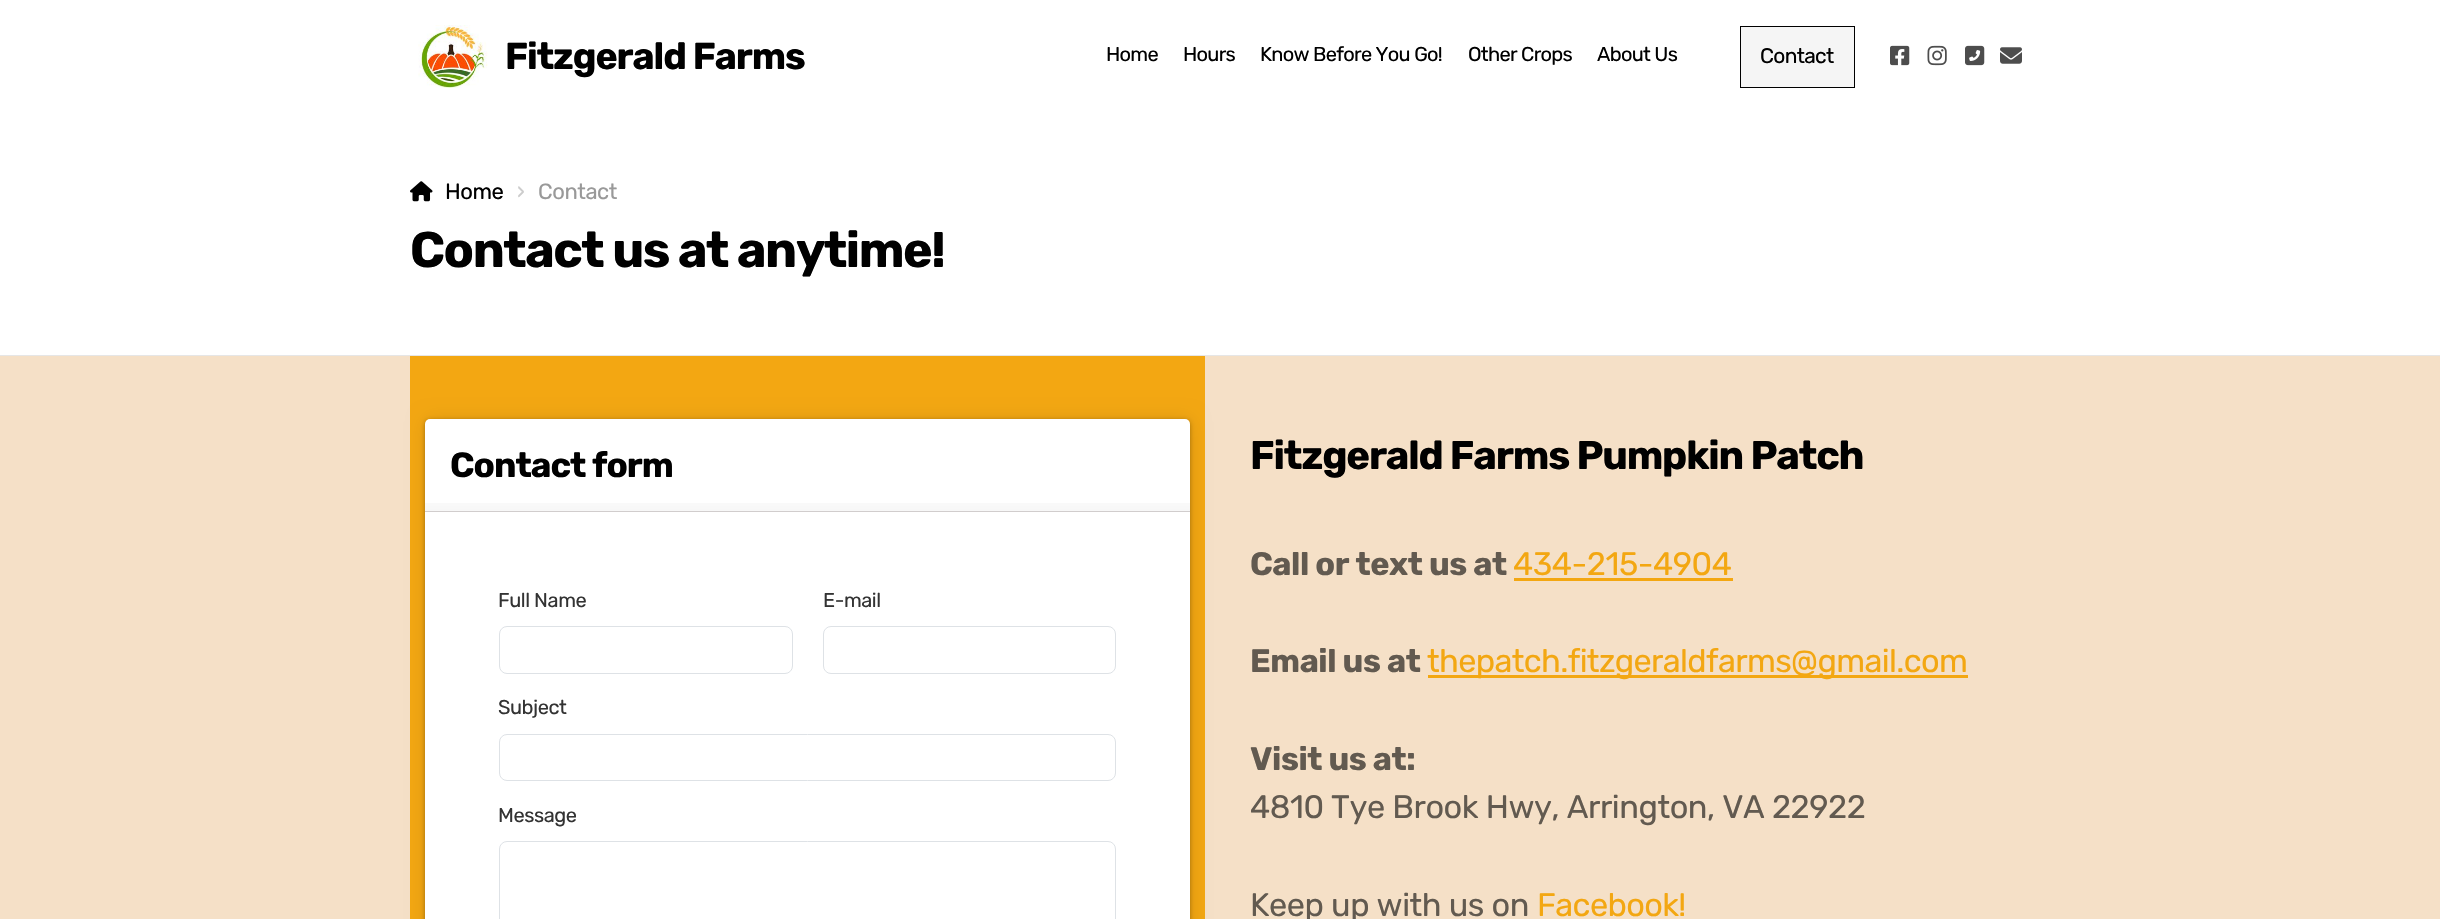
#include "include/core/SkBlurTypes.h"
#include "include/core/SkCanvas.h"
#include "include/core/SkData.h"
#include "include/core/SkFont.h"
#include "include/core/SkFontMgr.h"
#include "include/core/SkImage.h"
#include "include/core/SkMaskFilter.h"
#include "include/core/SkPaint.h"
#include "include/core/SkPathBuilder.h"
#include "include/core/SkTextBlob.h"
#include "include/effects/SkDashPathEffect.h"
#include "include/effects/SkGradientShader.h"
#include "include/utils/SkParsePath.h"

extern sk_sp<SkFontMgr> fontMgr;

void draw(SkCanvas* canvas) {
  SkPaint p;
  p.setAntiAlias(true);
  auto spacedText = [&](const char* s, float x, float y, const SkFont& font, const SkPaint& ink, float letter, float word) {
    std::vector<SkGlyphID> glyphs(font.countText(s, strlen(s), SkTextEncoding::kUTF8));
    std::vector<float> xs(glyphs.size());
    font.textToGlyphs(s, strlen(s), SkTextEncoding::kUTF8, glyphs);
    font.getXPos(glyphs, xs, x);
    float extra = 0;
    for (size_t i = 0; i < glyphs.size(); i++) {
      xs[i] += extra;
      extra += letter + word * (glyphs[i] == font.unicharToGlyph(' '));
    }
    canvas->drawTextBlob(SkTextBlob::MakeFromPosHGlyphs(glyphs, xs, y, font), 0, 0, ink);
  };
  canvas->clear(SK_ColorWHITE);
  canvas->drawImageRect(SkImages::DeferredFromEncodedData(SkData::MakeFromFileName("images/1.png")), SkRect::MakeLTRB(418, 25, 488, 88), SkSamplingOptions());
  p.setColor(SkColorSetRGB(245, 245, 245));
  canvas->drawRect(SkRect::MakeLTRB(1740.5f, 26.5f, 1854.5f, 87.5f), p);
  p.setStyle(SkPaint::kStroke_Style);
  p.setStrokeWidth(1);
  p.setColor(SK_ColorBLACK);
  canvas->drawRect(SkRect::MakeLTRB(1740.5f, 26.5f, 1854.5f, 87.5f), p);
  canvas->drawImageRect(SkImages::DeferredFromEncodedData(SkData::MakeFromFileName("images/2.png")), SkRect::MakeLTRB(1890, 45, 1910, 66), SkSamplingOptions());
  canvas->drawImageRect(SkImages::DeferredFromEncodedData(SkData::MakeFromFileName("images/3.png")), SkRect::MakeLTRB(1927, 45, 1947, 66), SkSamplingOptions());
  canvas->drawImageRect(SkImages::DeferredFromEncodedData(SkData::MakeFromFileName("images/4.png")), SkRect::MakeLTRB(1965, 45, 1985, 66), SkSamplingOptions());
  canvas->drawImageRect(SkImages::DeferredFromEncodedData(SkData::MakeFromFileName("images/5.png")), SkRect::MakeLTRB(2000, 47, 2022, 64), SkSamplingOptions());
  p.setStyle(SkPaint::kFill_Style);
  p.setColor(SkColorSetRGB(230, 230, 230));
  canvas->drawRect(SkRect::MakeLTRB(0, 355, 2440, 356), p);
  canvas->drawImageRect(SkImages::DeferredFromEncodedData(SkData::MakeFromFileName("images/6.png")), SkRect::MakeLTRB(410, 181, 433, 202), SkSamplingOptions());
  p.setColor(SkColorSetRGB(245, 224, 199));
  canvas->drawRect(SkRect::MakeLTRB(0, 356, 2440, 919), p);
  p.setColor(SkColorSetRGB(243, 167, 18));
  canvas->drawRect(SkRect::MakeLTRB(410, 356, 1205, 919), p);
  p.setColor(SkColorSetARGB(77, 0, 0, 0));
  p.setMaskFilter(SkMaskFilter::MakeBlur(kNormal_SkBlurStyle, 2));
  canvas->drawRoundRect(SkRect::MakeLTRB(425, 420, 1190, 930), 5, 5, p);
  p.setMaskFilter(nullptr);
  p.setColor(SkColorSetARGB(26, 0, 0, 0));
  p.setMaskFilter(SkMaskFilter::MakeBlur(kNormal_SkBlurStyle, 9.5f));
  canvas->drawRoundRect(SkRect::MakeLTRB(426, 420, 1191, 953), 5, 5, p);
  p.setMaskFilter(nullptr);
  p.setColor(SK_ColorWHITE);
  canvas->drawRoundRect(SkRect::MakeLTRB(425, 419, 1190, 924), 5, 5, p);
  {
    const SkColor colors[] = {SkColorSetARGB(8, 1, 1, 1), SkColorSetARGB(0, 1, 1, 1)};
    const float stops[] = {0, 0.3f};
    const SkPoint ends[] = {{808, 511}, {808, 419}};
    p.setShader(SkGradientShader::MakeLinear(ends, colors, stops, 2, SkTileMode::kClamp));
    p.setAlpha(255);
  }
  canvas->drawRect(SkRect::MakeLTRB(425, 503, 1190, 511), p);
  p.setShader(nullptr);
  p.setColor(SkColorSetRGB(209, 205, 205));
  canvas->drawRect(SkRect::MakeLTRB(425, 511, 1190, 512), p);
  p.setStyle(SkPaint::kStroke_Style);
  p.setColor(SkColorSetRGB(222, 226, 230));
  canvas->drawRoundRect(SkRect::MakeLTRB(499.5f, 626.5f, 792.5f, 673.5f), 7.5f, 7.5f, p);
  canvas->drawRoundRect(SkRect::MakeLTRB(823.5f, 626.5f, 1115.5f, 673.5f), 7.5f, 7.5f, p);
  canvas->drawRoundRect(SkRect::MakeLTRB(499.5f, 734.5f, 1115.5f, 780.5f), 7.5f, 7.5f, p);
  canvas->drawRoundRect(SkRect::MakeLTRB(499.5f, 841.5f, 1115.5f, 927.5f), 7.5f, 7.5f, p);
  p.setStyle(SkPaint::kFill_Style);
  p.setColor(SkColorSetRGB(243, 167, 18));
  canvas->drawRect(SkRect::MakeLTRB(1514, 578, 1733, 581), p);
  canvas->drawRect(SkRect::MakeLTRB(1428, 675, 1968, 678), p);
  SkFont font1(fontMgr->matchFamilyStyle("Rubik", SkFontStyle::Bold()), 37.5f);
  font1.setSubpixel(true);
  p.setColor(SK_ColorBLACK);
  spacedText("Fitzgerald Farms", 505, 69, font1, p, -1.1f, 0);
  SkFont font2(fontMgr->matchFamilyStyle("Rubik", SkFontStyle::Normal()), 20);
  font2.setSubpixel(true);
  spacedText("Home", 1106, 61, font2, p, -0.7f, 0);
  spacedText("Hours", 1183, 61, font2, p, -0.7f, 0);
  spacedText("Know Before You Go!", 1260, 61, font2, p, -0.7f, 0);
  spacedText("Other Crops", 1468, 61, font2, p, -0.7f, 0);
  spacedText("About Us", 1597, 61, font2, p, -0.7f, 0);
  SkFont font3(fontMgr->matchFamilyStyle("Rubik", SkFontStyle::Normal()), 21);
  font3.setSubpixel(true);
  spacedText("Contact", 1760, 63, font3, p, -0.7f, 0);
  SkFont font4(fontMgr->matchFamilyStyle("Rubik", SkFontStyle::Normal()), 22);
  font4.setSubpixel(true);
  spacedText("Home", 445, 199, font4, p, -0.45f, 0);
  p.setColor(SkColorSetRGB(204, 204, 204));
  spacedText("›", 517, 199, font4, p, -0.45f, 0);
  p.setColor(SkColorSetRGB(153, 153, 153));
  spacedText("Contact", 538, 199, font4, p, -0.45f, 0);
  SkFont font5(fontMgr->matchFamilyStyle("Rubik", SkFontStyle::Bold()), 50);
  font5.setSubpixel(true);
  p.setColor(SK_ColorBLACK);
  spacedText("Contact us at anytime!", 410, 267, font5, p, -1.5f, 0);
  SkFont font6(fontMgr->matchFamilyStyle("Rubik", SkFontStyle::Bold()), 35);
  font6.setSubpixel(true);
  spacedText("Contact form", 450, 477, font6, p, -1, 0);
  p.setColor(SkColorSetRGB(51, 51, 51));
  spacedText("Full Name", 498, 607, font2, p, -0.45f, 0);
  spacedText("E-mail", 823, 607, font2, p, -0.45f, 0);
  spacedText("Subject", 498, 714, font2, p, -0.45f, 0);
  spacedText("Message", 498, 822, font2, p, -0.45f, 0);
  SkFont font7(fontMgr->matchFamilyStyle("Rubik", SkFontStyle::Bold()), 40);
  font7.setSubpixel(true);
  p.setColor(SK_ColorBLACK);
  spacedText("Fitzgerald Farms Pumpkin Patch", 1250, 469, font7, p, -1.2f, 0);
  SkFont font8(fontMgr->matchFamilyStyle("Rubik", SkFontStyle::Bold()), 32.5f);
  font8.setSubpixel(true);
  p.setColor(SkColorSetRGB(98, 90, 80));
  spacedText("Call or text us at", 1250, 575, font8, p, -0.45f, 0);
  SkFont font9(fontMgr->matchFamilyStyle("Rubik", SkFontStyle::Normal()), 32.5f);
  font9.setSubpixel(true);
  p.setColor(SkColorSetRGB(243, 167, 18));
  spacedText("434-215-4904", 1513, 575, font9, p, -0.45f, 0);
  p.setColor(SkColorSetRGB(98, 90, 80));
  spacedText("Email us at", 1250, 672, font8, p, -0.45f, 0);
  p.setColor(SkColorSetRGB(243, 167, 18));
  spacedText("thepatch.fitzgeraldfarms@gmail.com", 1427, 672, font9, p, -0.65f, 0);
  p.setColor(SkColorSetRGB(98, 90, 80));
  spacedText("Visit us at:", 1250, 770, font8, p, -0.45f, 0);
  spacedText("4810 Tye Brook Hwy, Arrington, VA 22922", 1250, 818, font9, p, -0.45f, 0);
  spacedText("Keep up with us on", 1250, 916, font9, p, -0.45f, 0);
  p.setColor(SkColorSetRGB(243, 167, 18));
  spacedText("Facebook!", 1537, 916, font9, p, -0.65f, 0);
}
